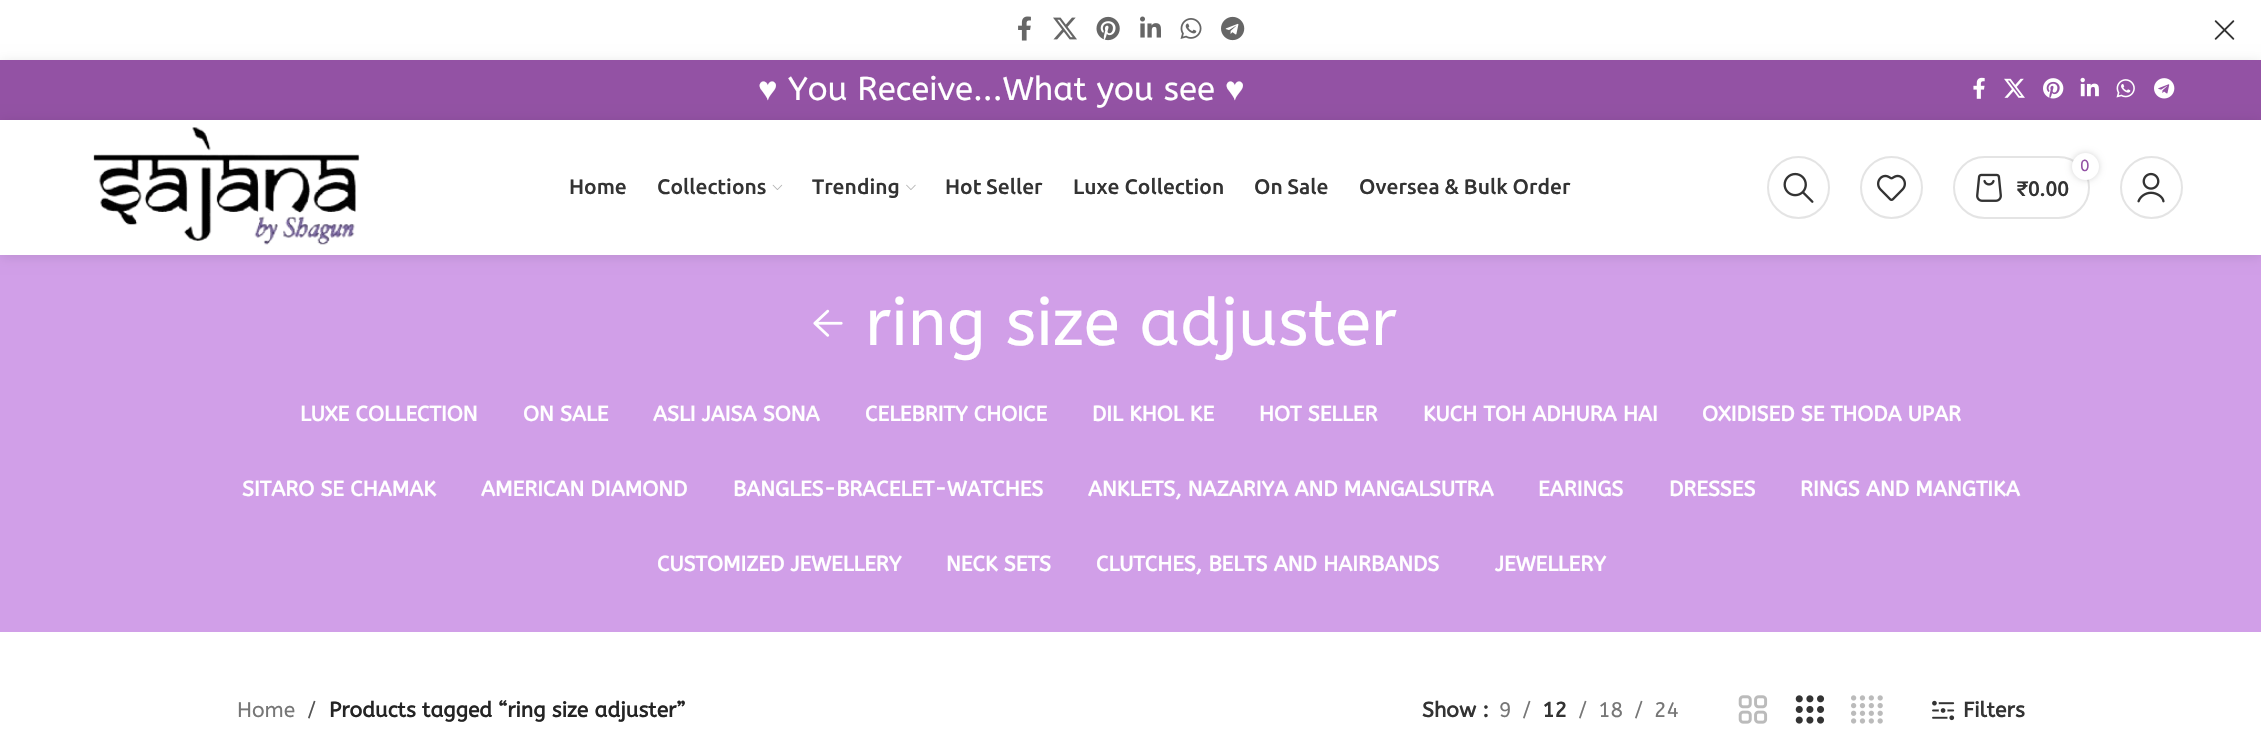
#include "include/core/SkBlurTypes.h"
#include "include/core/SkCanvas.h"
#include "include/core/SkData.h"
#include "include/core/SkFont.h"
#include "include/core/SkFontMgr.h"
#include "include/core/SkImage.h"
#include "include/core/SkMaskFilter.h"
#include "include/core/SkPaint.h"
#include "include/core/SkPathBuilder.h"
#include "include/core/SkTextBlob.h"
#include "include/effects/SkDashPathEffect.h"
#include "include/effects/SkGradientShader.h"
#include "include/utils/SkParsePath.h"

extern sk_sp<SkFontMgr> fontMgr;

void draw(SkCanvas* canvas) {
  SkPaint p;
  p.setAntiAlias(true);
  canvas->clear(SK_ColorWHITE);
  canvas->drawImageRect(SkImages::DeferredFromEncodedData(SkData::MakeFromFileName("images/1.png")), SkRect::MakeLTRB(1018, 16, 1031, 41), SkSamplingOptions());
  canvas->drawImageRect(SkImages::DeferredFromEncodedData(SkData::MakeFromFileName("images/2.png")), SkRect::MakeLTRB(1053, 17, 1077, 40), SkSamplingOptions());
  canvas->drawImageRect(SkImages::DeferredFromEncodedData(SkData::MakeFromFileName("images/3.png")), SkRect::MakeLTRB(1096, 16, 1120, 41), SkSamplingOptions());
  canvas->drawImageRect(SkImages::DeferredFromEncodedData(SkData::MakeFromFileName("images/4.png")), SkRect::MakeLTRB(1140, 16, 1161, 38), SkSamplingOptions());
  canvas->drawImageRect(SkImages::DeferredFromEncodedData(SkData::MakeFromFileName("images/5.png")), SkRect::MakeLTRB(1180, 18, 1202, 39), SkSamplingOptions());
  canvas->drawImageRect(SkImages::DeferredFromEncodedData(SkData::MakeFromFileName("images/6.png")), SkRect::MakeLTRB(1221, 16, 1245, 41), SkSamplingOptions());
  canvas->drawImageRect(SkImages::DeferredFromEncodedData(SkData::MakeFromFileName("images/7.png")), SkRect::MakeLTRB(2214, 20, 2235, 40), SkSamplingOptions());
  p.setColor(SkColorSetARGB(26, 0, 0, 0));
  p.setMaskFilter(SkMaskFilter::MakeBlur(kNormal_SkBlurStyle, 6));
  canvas->drawRect(SkRect::MakeLTRB(0, 62, 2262, 122), p);
  p.setMaskFilter(nullptr);
  p.setColor(SkColorSetRGB(147, 82, 164));
  canvas->drawRect(SkRect::MakeLTRB(0, 60, 2261, 120), p);
  canvas->drawImageRect(SkImages::DeferredFromEncodedData(SkData::MakeFromFileName("images/8.png")), SkRect::MakeLTRB(1973, 77, 1985, 99), SkSamplingOptions());
  canvas->drawImageRect(SkImages::DeferredFromEncodedData(SkData::MakeFromFileName("images/9.png")), SkRect::MakeLTRB(2004, 78, 2025, 98), SkSamplingOptions());
  canvas->drawImageRect(SkImages::DeferredFromEncodedData(SkData::MakeFromFileName("images/10.png")), SkRect::MakeLTRB(2043, 78, 2064, 99), SkSamplingOptions());
  canvas->drawImageRect(SkImages::DeferredFromEncodedData(SkData::MakeFromFileName("images/11.png")), SkRect::MakeLTRB(2080, 77, 2099, 97), SkSamplingOptions());
  canvas->drawImageRect(SkImages::DeferredFromEncodedData(SkData::MakeFromFileName("images/12.png")), SkRect::MakeLTRB(2116, 79, 2135, 98), SkSamplingOptions());
  canvas->drawImageRect(SkImages::DeferredFromEncodedData(SkData::MakeFromFileName("images/13.png")), SkRect::MakeLTRB(2154, 78, 2175, 99), SkSamplingOptions());
  p.setColor(SkColorSetRGB(209, 159, 232));
  canvas->drawRect(SkRect::MakeLTRB(0, 255, 2261, 632), p);
  p.setColor(SkColorSetARGB(26, 0, 0, 0));
  p.setMaskFilter(SkMaskFilter::MakeBlur(kNormal_SkBlurStyle, 6));
  canvas->drawRect(SkRect::MakeLTRB(0, 122, 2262, 257), p);
  p.setMaskFilter(nullptr);
  p.setColor(SK_ColorWHITE);
  canvas->drawRect(SkRect::MakeLTRB(0, 120, 2261, 255), p);
  canvas->drawImageRect(SkImages::DeferredFromEncodedData(SkData::MakeFromFileName("images/14.png")), SkRect::MakeLTRB(93, 127, 360, 245), SkSamplingOptions());
  canvas->drawImageRect(SkImages::DeferredFromEncodedData(SkData::MakeFromFileName("images/15.png")), SkRect::MakeLTRB(772, 184, 783, 190), SkSamplingOptions());
  canvas->drawImageRect(SkImages::DeferredFromEncodedData(SkData::MakeFromFileName("images/16.png")), SkRect::MakeLTRB(906, 184, 916, 190), SkSamplingOptions());
  p.setStyle(SkPaint::kStroke_Style);
  p.setStrokeWidth(2);
  p.setColor(SkColorSetRGB(228, 228, 228));
  canvas->drawCircle(1798.5f, 187.5f, 30.5f, p);
  canvas->drawImageRect(SkImages::DeferredFromEncodedData(SkData::MakeFromFileName("images/17.png")), SkRect::MakeLTRB(1783, 172, 1814, 203), SkSamplingOptions());
  canvas->drawCircle(1891.5f, 187.5f, 30.5f, p);
  canvas->drawImageRect(SkImages::DeferredFromEncodedData(SkData::MakeFromFileName("images/18.png")), SkRect::MakeLTRB(1877, 174, 1906, 201), SkSamplingOptions());
  canvas->drawRoundRect(SkRect::MakeLTRB(1954, 157, 2089, 218), 30.5f, 30.5f, p);
  p.setStyle(SkPaint::kFill_Style);
  p.setColor(SkColorSetARGB(43, 0, 0, 0));
  p.setMaskFilter(SkMaskFilter::MakeBlur(kNormal_SkBlurStyle, 3));
  canvas->drawRoundRect(SkRect::MakeLTRB(2072, 153, 2099, 180), 13.5f, 13.5f, p);
  p.setMaskFilter(nullptr);
  p.setColor(SK_ColorWHITE);
  canvas->drawCircle(2085.5f, 166.5f, 13.5f, p);
  canvas->drawImageRect(SkImages::DeferredFromEncodedData(SkData::MakeFromFileName("images/19.png")), SkRect::MakeLTRB(1976, 173, 2002, 202), SkSamplingOptions());
  p.setStyle(SkPaint::kStroke_Style);
  p.setColor(SkColorSetRGB(228, 228, 228));
  canvas->drawCircle(2151.5f, 187.5f, 30.5f, p);
  canvas->drawImageRect(SkImages::DeferredFromEncodedData(SkData::MakeFromFileName("images/20.png")), SkRect::MakeLTRB(2137, 172, 2165, 203), SkSamplingOptions());
  canvas->drawImageRect(SkImages::DeferredFromEncodedData(SkData::MakeFromFileName("images/21.png")), SkRect::MakeLTRB(813, 309, 843, 337), SkSamplingOptions());
  canvas->drawImageRect(SkImages::DeferredFromEncodedData(SkData::MakeFromFileName("images/22.png")), SkRect::MakeLTRB(1738, 695, 1768, 724), SkSamplingOptions());
  canvas->drawImageRect(SkImages::DeferredFromEncodedData(SkData::MakeFromFileName("images/23.png")), SkRect::MakeLTRB(1795, 695, 1825, 724), SkSamplingOptions());
  canvas->drawImageRect(SkImages::DeferredFromEncodedData(SkData::MakeFromFileName("images/24.png")), SkRect::MakeLTRB(1851, 695, 1883, 724), SkSamplingOptions());
  canvas->drawImageRect(SkImages::DeferredFromEncodedData(SkData::MakeFromFileName("images/25.png")), SkRect::MakeLTRB(1932, 700, 1955, 721), SkSamplingOptions());
  SkFont font1(fontMgr->matchFamilyStyle("Liberation Sans", SkFontStyle::Normal()), 33);
  font1.setSubpixel(true);
  p.setStyle(SkPaint::kFill_Style);
  p.setColor(SK_ColorWHITE);
  canvas->drawString("♥", 758, 100, font1, p);
  SkFont font2(fontMgr->matchFamilyStyle("ABeeZee", SkFontStyle::Normal()), 33);
  font2.setSubpixel(true);
  canvas->drawString("You Receive...What you see", 788, 100, font2, p);
  canvas->drawString("♥", 1225, 100, font1, p);
  SkFont font3(fontMgr->matchFamilyStyle("Ubuntu", SkFontStyle(500, SkFontStyle::kNormal_Width, SkFontStyle::kUpright_Slant)), 21);
  font3.setSubpixel(true);
  p.setColor(SkColorSetRGB(51, 51, 51));
  canvas->drawString("Home", 569, 194, font3, p);
  canvas->drawString("Collections", 657, 194, font3, p);
  canvas->drawString("Trending", 812, 194, font3, p);
  canvas->drawString("Hot Seller", 945, 194, font3, p);
  canvas->drawString("Luxe Collection", 1073, 194, font3, p);
  canvas->drawString("On Sale", 1254, 194, font3, p);
  canvas->drawString("Oversea & Bulk Order", 1359, 194, font3, p);
  SkFont font4(fontMgr->matchFamilyStyle("ABeeZee", SkFontStyle::Normal()), 16);
  font4.setSubpixel(true);
  p.setColor(SkColorSetRGB(147, 82, 164));
  canvas->drawString("0", 2080, 171, font4, p);
  p.setColor(SkColorSetRGB(51, 51, 51));
  canvas->drawString("₹0.00", 2016, 196, font3, p);
  SkFont font5(fontMgr->matchFamilyStyle("ABeeZee", SkFontStyle::Normal()), 66);
  font5.setSubpixel(true);
  p.setColor(SK_ColorWHITE);
  canvas->drawString("ring size adjuster", 865, 345, font5, p);
  SkFont font6(fontMgr->matchFamilyStyle("ABeeZee", SkFontStyle::Bold()), 21);
  font6.setSubpixel(true);
  canvas->drawString("LUXE COLLECTION", 300, 421, font6, p);
  canvas->drawString("ON SALE", 523, 421, font6, p);
  canvas->drawString("ASLI JAISA SONA", 653, 421, font6, p);
  canvas->drawString("CELEBRITY CHOICE", 865, 421, font6, p);
  canvas->drawString("DIL KHOL KE", 1092, 421, font6, p);
  canvas->drawString("HOT SELLER", 1259, 421, font6, p);
  canvas->drawString("KUCH TOH ADHURA HAI", 1423, 421, font6, p);
  canvas->drawString("OXIDISED SE THODA UPAR", 1702, 421, font6, p);
  canvas->drawString("SITARO SE CHAMAK", 242, 496, font6, p);
  canvas->drawString("AMERICAN DIAMOND", 481, 496, font6, p);
  canvas->drawString("BANGLES-BRACELET-WATCHES", 733, 496, font6, p);
  canvas->drawString("ANKLETS, NAZARIYA AND MANGALSUTRA", 1088, 496, font6, p);
  canvas->drawString("EARINGS", 1538, 496, font6, p);
  canvas->drawString("DRESSES", 1669, 496, font6, p);
  canvas->drawString("RINGS AND MANGTIKA", 1800, 496, font6, p);
  canvas->drawString("CUSTOMIZED JEWELLERY", 657, 571, font6, p);
  canvas->drawString("NECK SETS", 946, 571, font6, p);
  canvas->drawString("CLUTCHES, BELTS AND HAIRBANDS", 1096, 571, font6, p);
  canvas->drawString("JEWELLERY", 1495, 571, font6, p);
  SkFont font7(fontMgr->matchFamilyStyle("ABeeZee", SkFontStyle::Normal()), 21);
  font7.setSubpixel(true);
  p.setColor(SkColorSetRGB(118, 118, 118));
  canvas->drawString("Home", 237, 717, font7, p);
  p.setColor(SkColorSetRGB(84, 84, 84));
  canvas->drawString("/", 307, 717, font7, p);
  p.setColor(SkColorSetRGB(36, 36, 36));
  canvas->drawString("Products tagged “ring size adjuster”", 329, 717, font6, p);
  p.setColor(SkColorSetRGB(51, 51, 51));
  canvas->drawString("Show :", 1422, 717, font6, p);
  p.setColor(SkColorSetRGB(118, 118, 118));
  canvas->drawString("9", 1499, 717, font7, p);
  canvas->drawString("/", 1522, 717, font7, p);
  p.setColor(SkColorSetRGB(51, 51, 51));
  canvas->drawString("12", 1542, 717, font6, p);
  p.setColor(SkColorSetRGB(118, 118, 118));
  canvas->drawString("/", 1578, 717, font7, p);
  canvas->drawString("18", 1598, 717, font7, p);
  canvas->drawString("/", 1634, 717, font7, p);
  canvas->drawString("24", 1654, 717, font7, p);
  p.setColor(SkColorSetRGB(51, 51, 51));
  canvas->drawString("Filters", 1963, 717, font6, p);
}
